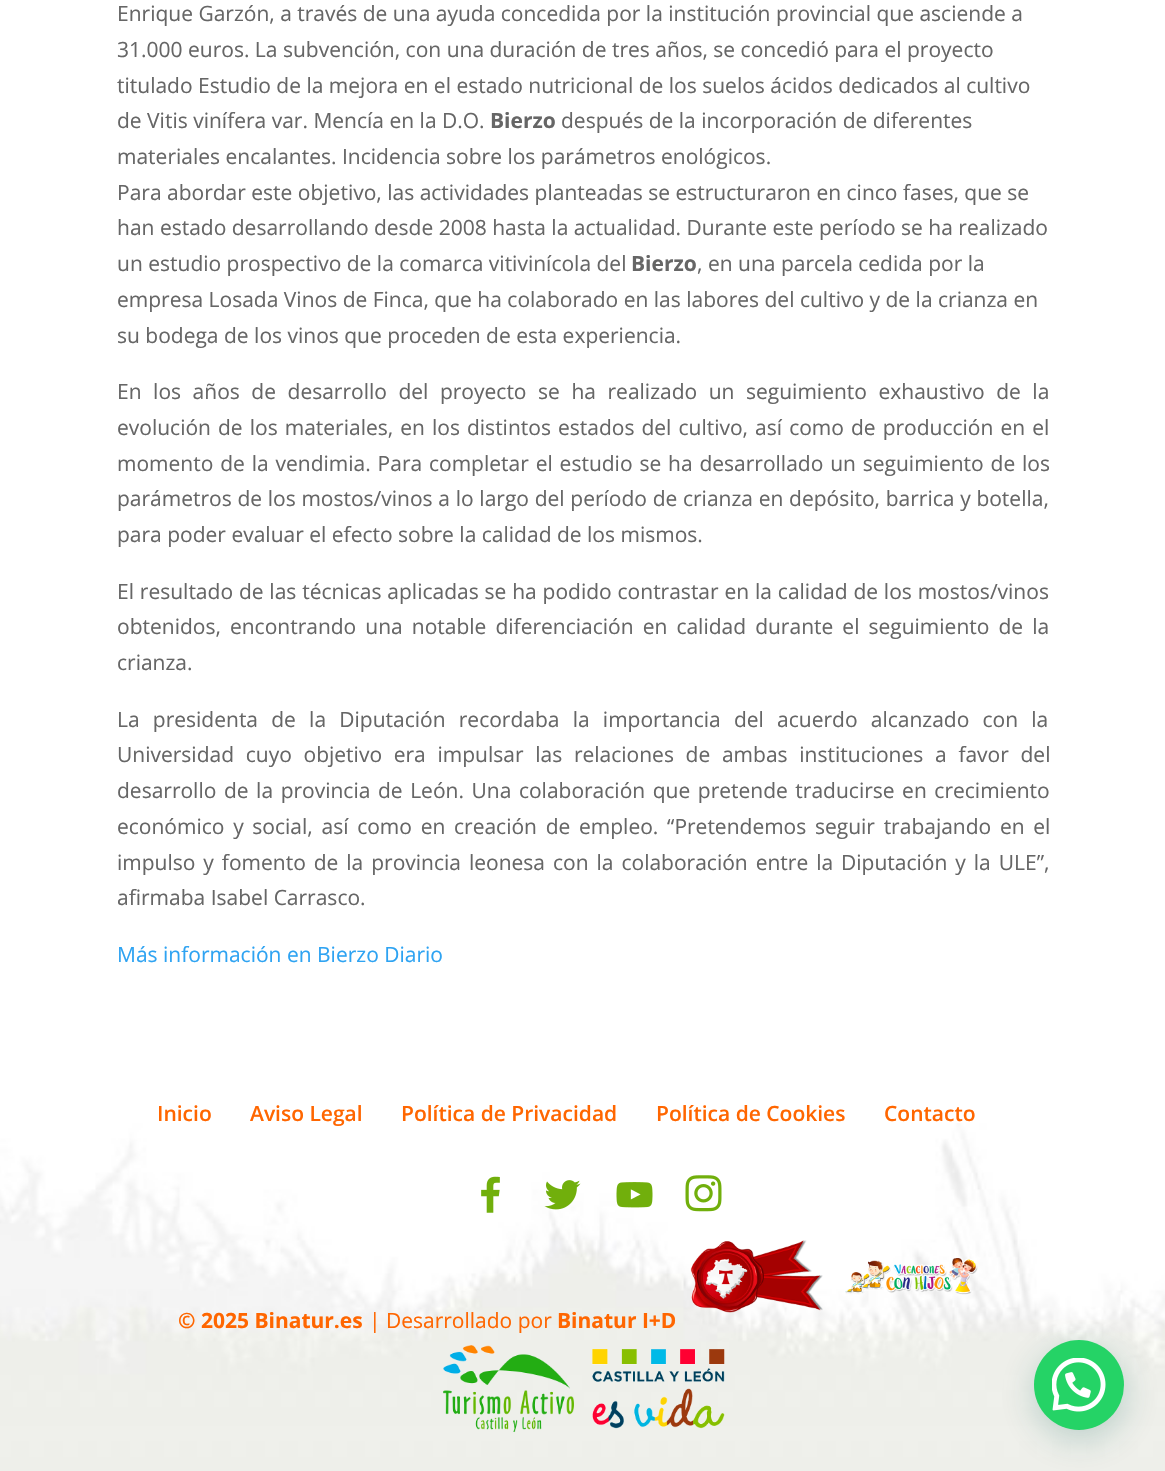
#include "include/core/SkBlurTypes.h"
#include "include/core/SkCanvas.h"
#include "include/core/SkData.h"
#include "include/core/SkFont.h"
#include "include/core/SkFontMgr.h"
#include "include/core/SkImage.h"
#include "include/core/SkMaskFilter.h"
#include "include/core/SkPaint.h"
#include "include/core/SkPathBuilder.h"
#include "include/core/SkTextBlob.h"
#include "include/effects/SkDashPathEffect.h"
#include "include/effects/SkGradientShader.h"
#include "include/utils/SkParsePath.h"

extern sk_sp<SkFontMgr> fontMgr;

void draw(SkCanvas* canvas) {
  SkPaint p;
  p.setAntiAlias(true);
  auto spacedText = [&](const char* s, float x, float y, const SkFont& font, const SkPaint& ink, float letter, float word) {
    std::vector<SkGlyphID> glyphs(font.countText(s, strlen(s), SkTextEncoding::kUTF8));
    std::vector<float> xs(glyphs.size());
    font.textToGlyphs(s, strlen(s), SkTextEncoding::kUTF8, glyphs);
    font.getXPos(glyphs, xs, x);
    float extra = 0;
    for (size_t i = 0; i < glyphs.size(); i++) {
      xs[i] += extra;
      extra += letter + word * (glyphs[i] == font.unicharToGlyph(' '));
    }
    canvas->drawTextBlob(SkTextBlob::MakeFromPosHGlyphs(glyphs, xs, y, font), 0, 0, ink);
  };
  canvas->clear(SK_ColorWHITE);
  canvas->drawImageRect(SkImages::DeferredFromEncodedData(SkData::MakeFromFileName("images/1.png")), SkRect::MakeLTRB(0, 1123, 1165, 1471), SkSamplingOptions());
  canvas->drawImageRect(SkImages::DeferredFromEncodedData(SkData::MakeFromFileName("images/2.png")), SkRect::MakeLTRB(481, 1176, 500, 1213), SkSamplingOptions());
  canvas->drawImageRect(SkImages::DeferredFromEncodedData(SkData::MakeFromFileName("images/3.png")), SkRect::MakeLTRB(544, 1180, 581, 1210), SkSamplingOptions());
  canvas->drawImageRect(SkImages::DeferredFromEncodedData(SkData::MakeFromFileName("images/4.png")), SkRect::MakeLTRB(616, 1182, 653, 1208), SkSamplingOptions());
  canvas->drawImageRect(SkImages::DeferredFromEncodedData(SkData::MakeFromFileName("images/5.png")), SkRect::MakeLTRB(685, 1175, 722, 1212), SkSamplingOptions());
  canvas->drawImageRect(SkImages::DeferredFromEncodedData(SkData::MakeFromFileName("images/6.png")), SkRect::MakeLTRB(690, 1240, 823, 1313), SkSamplingOptions());
  canvas->drawImageRect(SkImages::DeferredFromEncodedData(SkData::MakeFromFileName("images/7.png")), SkRect::MakeLTRB(845, 1258, 978, 1295), SkSamplingOptions());
  canvas->drawImageRect(SkImages::DeferredFromEncodedData(SkData::MakeFromFileName("images/8.png")), SkRect::MakeLTRB(443, 1345, 574, 1433), SkSamplingOptions());
  canvas->drawImageRect(SkImages::DeferredFromEncodedData(SkData::MakeFromFileName("images/9.png")), SkRect::MakeLTRB(592, 1349, 725, 1429), SkSamplingOptions());
  p.setColor(SkColorSetARGB(61, 7, 94, 84));
  p.setMaskFilter(SkMaskFilter::MakeBlur(kNormal_SkBlurStyle, 18));
  canvas->drawRoundRect(SkRect::MakeLTRB(1035, 1349, 1125, 1439), 45, 45, p);
  p.setMaskFilter(nullptr);
  p.setColor(SkColorSetRGB(37, 211, 102));
  canvas->drawCircle(1079, 1385, 45, p);
  canvas->drawImageRect(SkImages::DeferredFromEncodedData(SkData::MakeFromFileName("images/10.png")), SkRect::MakeLTRB(1052, 1358, 1106, 1412), SkSamplingOptions());
  SkFont font1(fontMgr->matchFamilyStyle("Open Sans", SkFontStyle::Normal()), 21);
  font1.setSubpixel(true);
  p.setColor(SkColorSetRGB(102, 102, 102));
  canvas->drawString("Enrique Garzón, a través de una ayuda concedida por la institución provincial que asciende a", 117, 21, font1, p);
  canvas->drawString("31.000 euros. La subvención, con una duración de tres años, se concedió para el proyecto", 117, 57, font1, p);
  canvas->drawString("titulado Estudio de la mejora en el estado nutricional de los suelos ácidos dedicados al cultivo", 117, 93, font1, p);
  canvas->drawString("de Vitis vinífera var. Mencía en la D.O.", 117, 128, font1, p);
  SkFont font2(fontMgr->matchFamilyStyle("Open Sans", SkFontStyle::Bold()), 21);
  font2.setSubpixel(true);
  canvas->drawString("Bierzo", 490, 128, font2, p);
  canvas->drawString("después de la incorporación de diferentes", 561, 128, font1, p);
  canvas->drawString("materiales encalantes. Incidencia sobre los parámetros enológicos.", 117, 164, font1, p);
  canvas->drawString("Para abordar este objetivo, las actividades planteadas se estructuraron en cinco fases, que se", 117, 200, font1, p);
  canvas->drawString("han estado desarrollando desde 2008 hasta la actualidad. Durante este período se ha realizado", 117, 235, font1, p);
  canvas->drawString("un estudio prospectivo de la comarca vitivinícola del", 117, 271, font1, p);
  canvas->drawString("Bierzo", 631, 271, font2, p);
  canvas->drawString(", en una parcela cedida por la", 697, 271, font1, p);
  canvas->drawString("empresa Losada Vinos de Finca, que ha colaborado en las labores del cultivo y de la crianza en", 117, 307, font1, p);
  canvas->drawString("su bodega de los vinos que proceden de esta experiencia.", 117, 343, font1, p);
  spacedText("En los años de desarrollo del proyecto se ha realizado un seguimiento exhaustivo de la", 117, 399, font1, p, 0, 6.1f);
  spacedText("evolución de los materiales, en los distintos estados del cultivo, así como de producción en el", 117, 435, font1, p, 0, 1.6f);
  spacedText("momento de la vendimia. Para completar el estudio se ha desarrollado un seguimiento de los", 117, 471, font1, p, 0, 1.4f);
  spacedText("parámetros de los mostos/vinos a lo largo del período de crianza en depósito, barrica y botella,", 117, 506, font1, p, 0, 0.25f);
  canvas->drawString("para poder evaluar el efecto sobre la calidad de los mismos.", 117, 542, font1, p);
  spacedText("El resultado de las técnicas aplicadas se ha podido contrastar en la calidad de los mostos/vinos", 117, 599, font1, p, 0, 0.4f);
  spacedText("obtenidos, encontrando una notable diferenciación en calidad durante el seguimiento de la", 117, 634, font1, p, 0, 3.6f);
  canvas->drawString("crianza.", 117, 670, font1, p);
  spacedText("La presidenta de la Diputación recordaba la importancia del acuerdo alcanzado con la", 117, 727, font1, p, 0, 7.75f);
  spacedText("Universidad cuyo objetivo era impulsar las relaciones de ambas instituciones a favor del", 117, 762, font1, p, 0, 6.25f);
  spacedText("desarrollo de la provincia de León. Una colaboración que pretende traducirse en crecimiento", 117, 798, font1, p, 0, 2.1f);
  spacedText("económico y social, así como en creación de empleo. “Pretendemos seguir trabajando en el", 117, 834, font1, p, 0, 3.25f);
  spacedText("impulso y fomento de la provincia leonesa con la colaboración entre la Diputación y la ULE”,", 117, 870, font1, p, 0, 2.5f);
  canvas->drawString("afirmaba Isabel Carrasco.", 117, 905, font1, p);
  p.setColor(SkColorSetRGB(46, 163, 242));
  canvas->drawString("Más información en Bierzo Diario", 117, 962, font1, p);
  SkFont font3(fontMgr->matchFamilyStyle("Open Sans", SkFontStyle(600, SkFontStyle::kNormal_Width, SkFontStyle::kUpright_Slant)), 21);
  font3.setSubpixel(true);
  p.setColor(SkColorSetRGB(255, 102, 0));
  canvas->drawString("Inicio", 157, 1121, font3, p);
  canvas->drawString("Aviso Legal", 250, 1121, font3, p);
  canvas->drawString("Política de Privacidad", 401, 1121, font3, p);
  canvas->drawString("Política de Cookies", 656, 1121, font3, p);
  canvas->drawString("Contacto", 884, 1121, font3, p);
  canvas->drawString("© 2025 Binatur.es", 178, 1328, font2, p);
  canvas->drawString("| Desarrollado por", 369, 1328, font1, p);
  canvas->drawString("Binatur I+D", 557, 1328, font2, p);
}
